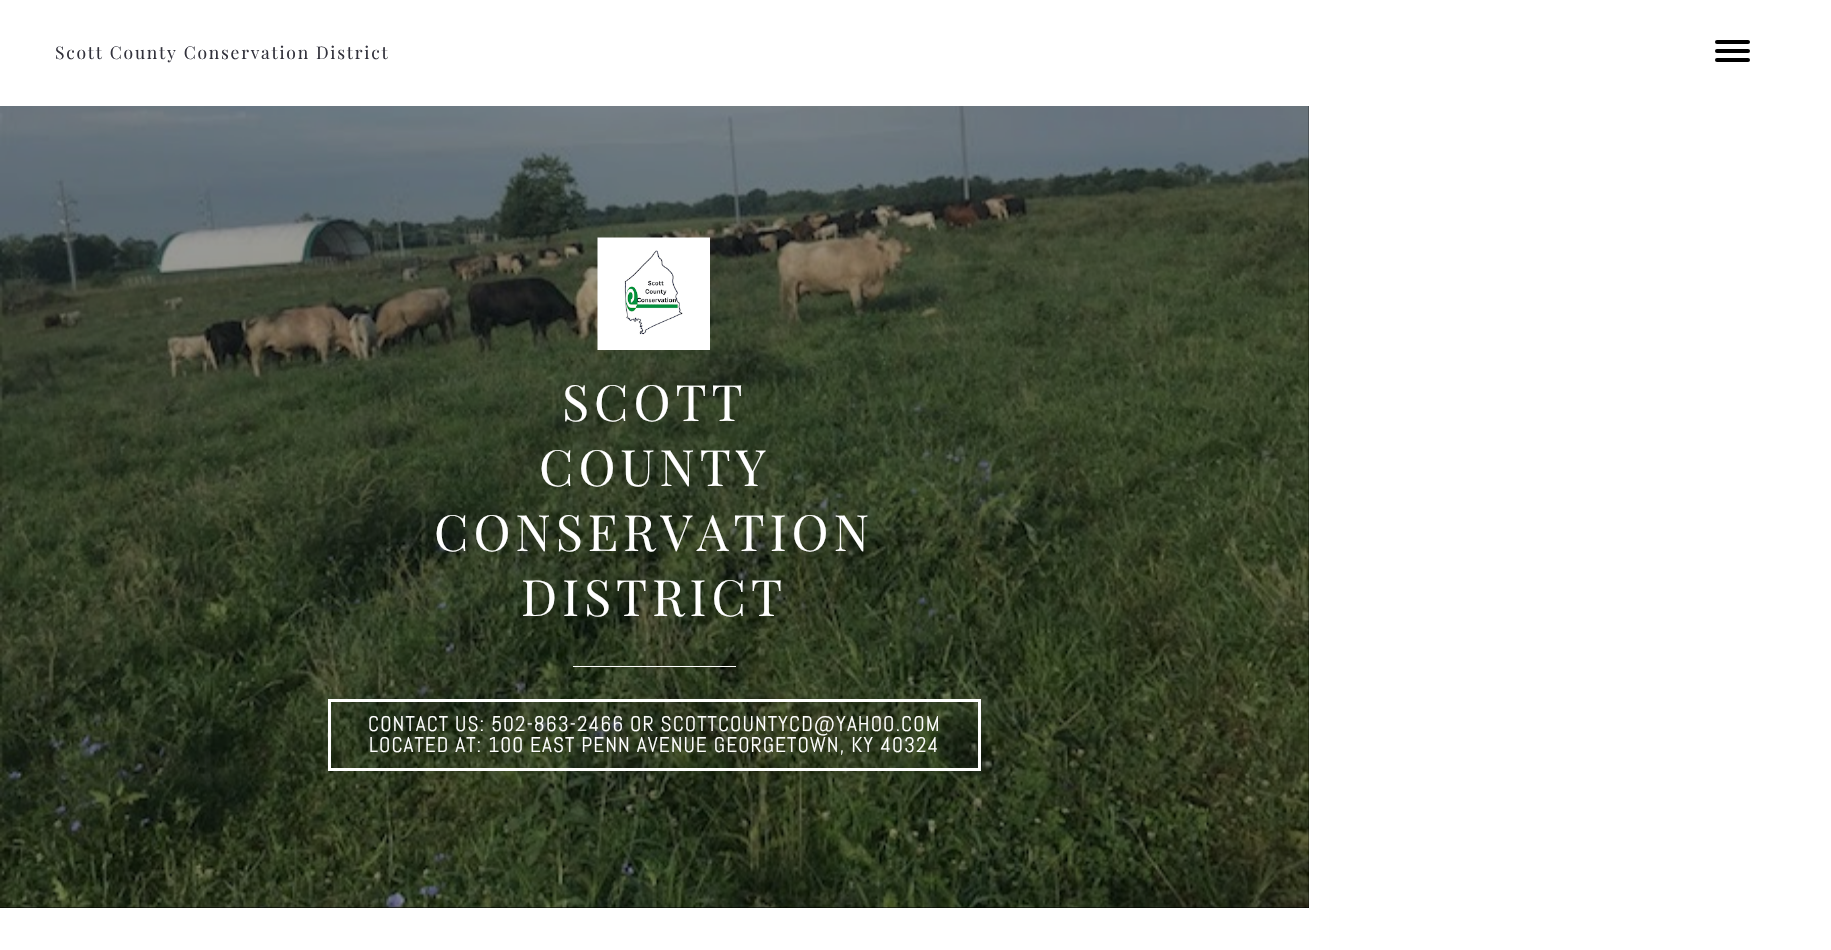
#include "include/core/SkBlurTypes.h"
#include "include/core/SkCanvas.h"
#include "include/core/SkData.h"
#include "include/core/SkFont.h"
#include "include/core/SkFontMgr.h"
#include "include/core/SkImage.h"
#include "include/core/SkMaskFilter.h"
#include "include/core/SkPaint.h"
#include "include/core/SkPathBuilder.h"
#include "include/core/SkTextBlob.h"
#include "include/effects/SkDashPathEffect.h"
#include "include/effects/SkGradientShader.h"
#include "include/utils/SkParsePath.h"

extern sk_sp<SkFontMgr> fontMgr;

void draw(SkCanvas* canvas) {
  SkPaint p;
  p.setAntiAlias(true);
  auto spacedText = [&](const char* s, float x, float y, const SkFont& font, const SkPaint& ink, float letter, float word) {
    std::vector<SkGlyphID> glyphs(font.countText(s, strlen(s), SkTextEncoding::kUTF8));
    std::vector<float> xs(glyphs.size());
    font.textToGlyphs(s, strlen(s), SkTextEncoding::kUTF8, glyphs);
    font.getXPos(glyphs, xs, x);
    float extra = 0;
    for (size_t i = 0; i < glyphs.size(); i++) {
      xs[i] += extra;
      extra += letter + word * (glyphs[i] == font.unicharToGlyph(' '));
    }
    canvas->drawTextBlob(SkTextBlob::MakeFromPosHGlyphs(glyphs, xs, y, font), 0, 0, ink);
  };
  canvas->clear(SK_ColorWHITE);
  p.setColor(SK_ColorBLACK);
  canvas->drawRoundRect(SkRect::MakeLTRB(1715, 49, 1750, 53), 2, 2, p);
  canvas->drawRoundRect(SkRect::MakeLTRB(1715, 40, 1750, 44), 2, 2, p);
  canvas->drawRoundRect(SkRect::MakeLTRB(1715, 58, 1750, 62), 2, 2, p);
  canvas->drawRect(SkRect::MakeLTRB(0, 106, 1309, 908), p);
  canvas->drawImageRect(SkImages::DeferredFromEncodedData(SkData::MakeFromFileName("images/1.png")), SkRect::MakeLTRB(0, 106, 1309, 908), SkSamplingOptions());
  canvas->drawImageRect(SkImages::DeferredFromEncodedData(SkData::MakeFromFileName("images/2.png")), SkRect::MakeLTRB(597, 237, 710, 350), SkSamplingOptions());
  p.setColor(SK_ColorWHITE);
  canvas->drawRect(SkRect::MakeLTRB(573, 666, 736, 667), p);
  p.setStyle(SkPaint::kStroke_Style);
  p.setStrokeWidth(3);
  canvas->drawRect(SkRect::MakeLTRB(329.5f, 700.5f, 979.5f, 769.5f), p);
  SkFont font1(fontMgr->matchFamilyStyle("Playfair Display", SkFontStyle::Normal()), 17.5f);
  font1.setSubpixel(true);
  p.setStyle(SkPaint::kFill_Style);
  p.setColor(SkColorSetRGB(50, 50, 60));
  spacedText("Scott County Conservation District", 55, 59, font1, p, 1.75f, 0);
  SkFont font2(fontMgr->matchFamilyStyle("Playfair Display", SkFontStyle::Normal()), 50);
  font2.setSubpixel(true);
  p.setColor(SK_ColorWHITE);
  spacedText("SCOTT", 562, 421, font2, p, 5, 0);
  spacedText("COUNTY", 539, 486, font2, p, 5, 0);
  spacedText("CONSERVATION", 434, 551, font2, p, 5, 0);
  spacedText("DISTRICT", 521, 616, font2, p, 5, 0);
  SkFont font3(fontMgr->matchFamilyStyle("Abel", SkFontStyle::Normal()), 21.25f);
  font3.setSubpixel(true);
  spacedText("CONTACT US: 502-863-2466 OR SCOTTCOUNTYCD@YAHOO.COM", 368, 731, font3, p, 1.05f, 0);
  spacedText("LOCATED AT: 100 EAST PENN AVENUE GEORGETOWN, KY 40324", 369, 752, font3, p, 1.05f, 0);
}
